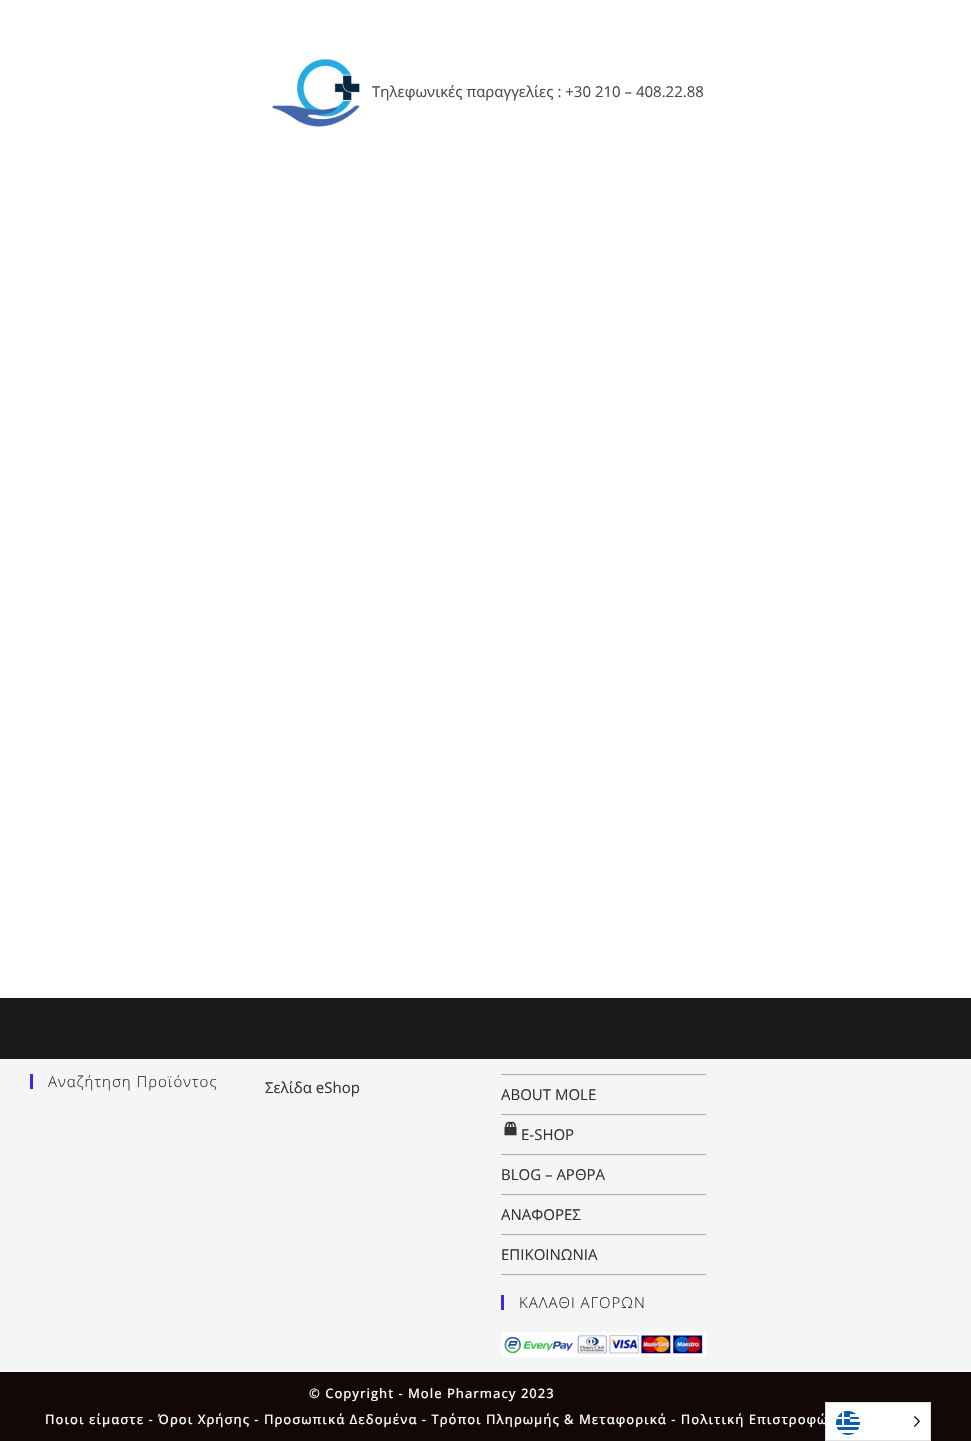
#include "include/core/SkBlurTypes.h"
#include "include/core/SkCanvas.h"
#include "include/core/SkData.h"
#include "include/core/SkFont.h"
#include "include/core/SkFontMgr.h"
#include "include/core/SkImage.h"
#include "include/core/SkMaskFilter.h"
#include "include/core/SkPaint.h"
#include "include/core/SkPathBuilder.h"
#include "include/core/SkTextBlob.h"
#include "include/effects/SkDashPathEffect.h"
#include "include/effects/SkGradientShader.h"
#include "include/utils/SkParsePath.h"

extern sk_sp<SkFontMgr> fontMgr;

void draw(SkCanvas* canvas) {
  SkPaint p;
  p.setAntiAlias(true);
  auto spacedText = [&](const char* s, float x, float y, const SkFont& font, const SkPaint& ink, float letter, float word) {
    std::vector<SkGlyphID> glyphs(font.countText(s, strlen(s), SkTextEncoding::kUTF8));
    std::vector<float> xs(glyphs.size());
    font.textToGlyphs(s, strlen(s), SkTextEncoding::kUTF8, glyphs);
    font.getXPos(glyphs, xs, x);
    float extra = 0;
    for (size_t i = 0; i < glyphs.size(); i++) {
      xs[i] += extra;
      extra += letter + word * (glyphs[i] == font.unicharToGlyph(' '));
    }
    canvas->drawTextBlob(SkTextBlob::MakeFromPosHGlyphs(glyphs, xs, y, font), 0, 0, ink);
  };
  canvas->clear(SK_ColorWHITE);
  canvas->drawImageRect(SkImages::DeferredFromEncodedData(SkData::MakeFromFileName("images/1.png")), SkRect::MakeLTRB(272, 59, 360, 127), SkSamplingOptions());
  p.setColor(SkColorSetRGB(27, 27, 27));
  canvas->drawRect(SkRect::MakeLTRB(0, 998, 971, 1059), p);
  p.setColor(SkColorSetRGB(245, 245, 245));
  canvas->drawRect(SkRect::MakeLTRB(0, 1059, 971, 1372), p);
  p.setColor(SkColorSetRGB(53, 44, 232));
  canvas->drawRect(SkRect::MakeLTRB(30, 1074, 33, 1089), p);
  p.setColor(SkColorSetRGB(170, 170, 170));
  canvas->drawRect(SkRect::MakeLTRB(501, 1074, 706, 1075), p);
  canvas->drawRect(SkRect::MakeLTRB(501, 1114, 706, 1115), p);
  canvas->drawRect(SkRect::MakeLTRB(501, 1154, 706, 1155), p);
  canvas->drawImageRect(SkImages::DeferredFromEncodedData(SkData::MakeFromFileName("images/2.png")), SkRect::MakeLTRB(504, 1121, 517, 1136), SkSamplingOptions());
  canvas->drawRect(SkRect::MakeLTRB(501, 1194, 706, 1195), p);
  canvas->drawRect(SkRect::MakeLTRB(501, 1234, 706, 1235), p);
  canvas->drawRect(SkRect::MakeLTRB(501, 1274, 706, 1275), p);
  p.setColor(SkColorSetRGB(53, 44, 232));
  canvas->drawRect(SkRect::MakeLTRB(501, 1295, 504, 1310), p);
  canvas->drawImageRect(SkImages::DeferredFromEncodedData(SkData::MakeFromFileName("images/3.png")), SkRect::MakeLTRB(501, 1332, 706, 1357), SkSamplingOptions());
  p.setColor(SkColorSetRGB(20, 7, 7));
  canvas->drawRect(SkRect::MakeLTRB(0, 1372, 971, 1441), p);
  p.setColor(SK_ColorWHITE);
  canvas->drawRect(SkRect::MakeLTRB(825.5f, 1402.5f, 930.5f, 1440.5f), p);
  p.setStyle(SkPaint::kStroke_Style);
  p.setStrokeWidth(1);
  p.setColor(SkColorSetRGB(224, 224, 224));
  canvas->drawRect(SkRect::MakeLTRB(825.5f, 1402.5f, 930.5f, 1440.5f), p);
  canvas->drawImageRect(SkImages::DeferredFromEncodedData(SkData::MakeFromFileName("images/4.png")), SkRect::MakeLTRB(836, 1411, 860, 1435), SkSamplingOptions());
  canvas->drawImageRect(SkImages::DeferredFromEncodedData(SkData::MakeFromFileName("images/5.png")), SkRect::MakeLTRB(914, 1416, 920, 1427), SkSamplingOptions());
  SkFont font1(fontMgr->matchFamilyStyle("Open Sans", SkFontStyle::Normal()), 15);
  font1.setSubpixel(true);
  p.setStyle(SkPaint::kFill_Style);
  p.setColor(SkColorSetRGB(74, 74, 74));
  canvas->drawString("Τηλεφωνικές παραγγελίες : +30 210 – 408.22.88", 372, 97, font1, p);
  SkFont font2(fontMgr->matchFamilyStyle("Open Sans", SkFontStyle(300, SkFontStyle::kNormal_Width, SkFontStyle::kUpright_Slant)), 15);
  font2.setSubpixel(true);
  p.setColor(SkColorSetRGB(41, 41, 41));
  spacedText("Αναζήτηση Προϊόντος", 48, 1087, font2, p, 1, 0);
  p.setColor(SkColorSetRGB(51, 51, 51));
  canvas->drawString("Σελίδα eShop", 265, 1093, font1, p);
  canvas->drawString("ABOUT MOLE", 501, 1100, font1, p);
  canvas->drawString("E-SHOP", 521, 1140, font1, p);
  canvas->drawString("BLOG – ΑΡΘΡΑ", 501, 1180, font1, p);
  canvas->drawString("ΑΝΑΦΟΡΕΣ", 501, 1220, font1, p);
  canvas->drawString("ΕΠΙΚΟΙΝΩΝΙΑ", 501, 1260, font1, p);
  p.setColor(SkColorSetRGB(41, 41, 41));
  spacedText("ΚΑΛΑΘΙ ΑΓΟΡΩΝ", 519, 1308, font2, p, 1, 0);
  SkFont font3(fontMgr->matchFamilyStyle("Open Sans", SkFontStyle(500, SkFontStyle::kNormal_Width, SkFontStyle::kUpright_Slant)), 13);
  font3.setSubpixel(true);
  p.setColor(SK_ColorWHITE);
  spacedText("© Copyright - Mole Pharmacy 2023", 309, 1398, font3, p, 1, 0);
  spacedText("Ποιοι είμαστε - Όροι Χρήσης - Προσωπικά Δεδομένα - Τρόποι Πληρωμής & Μεταφορικά - Πολιτική Επιστροφώ", 45, 1424, font3, p, 1, 0);
}
